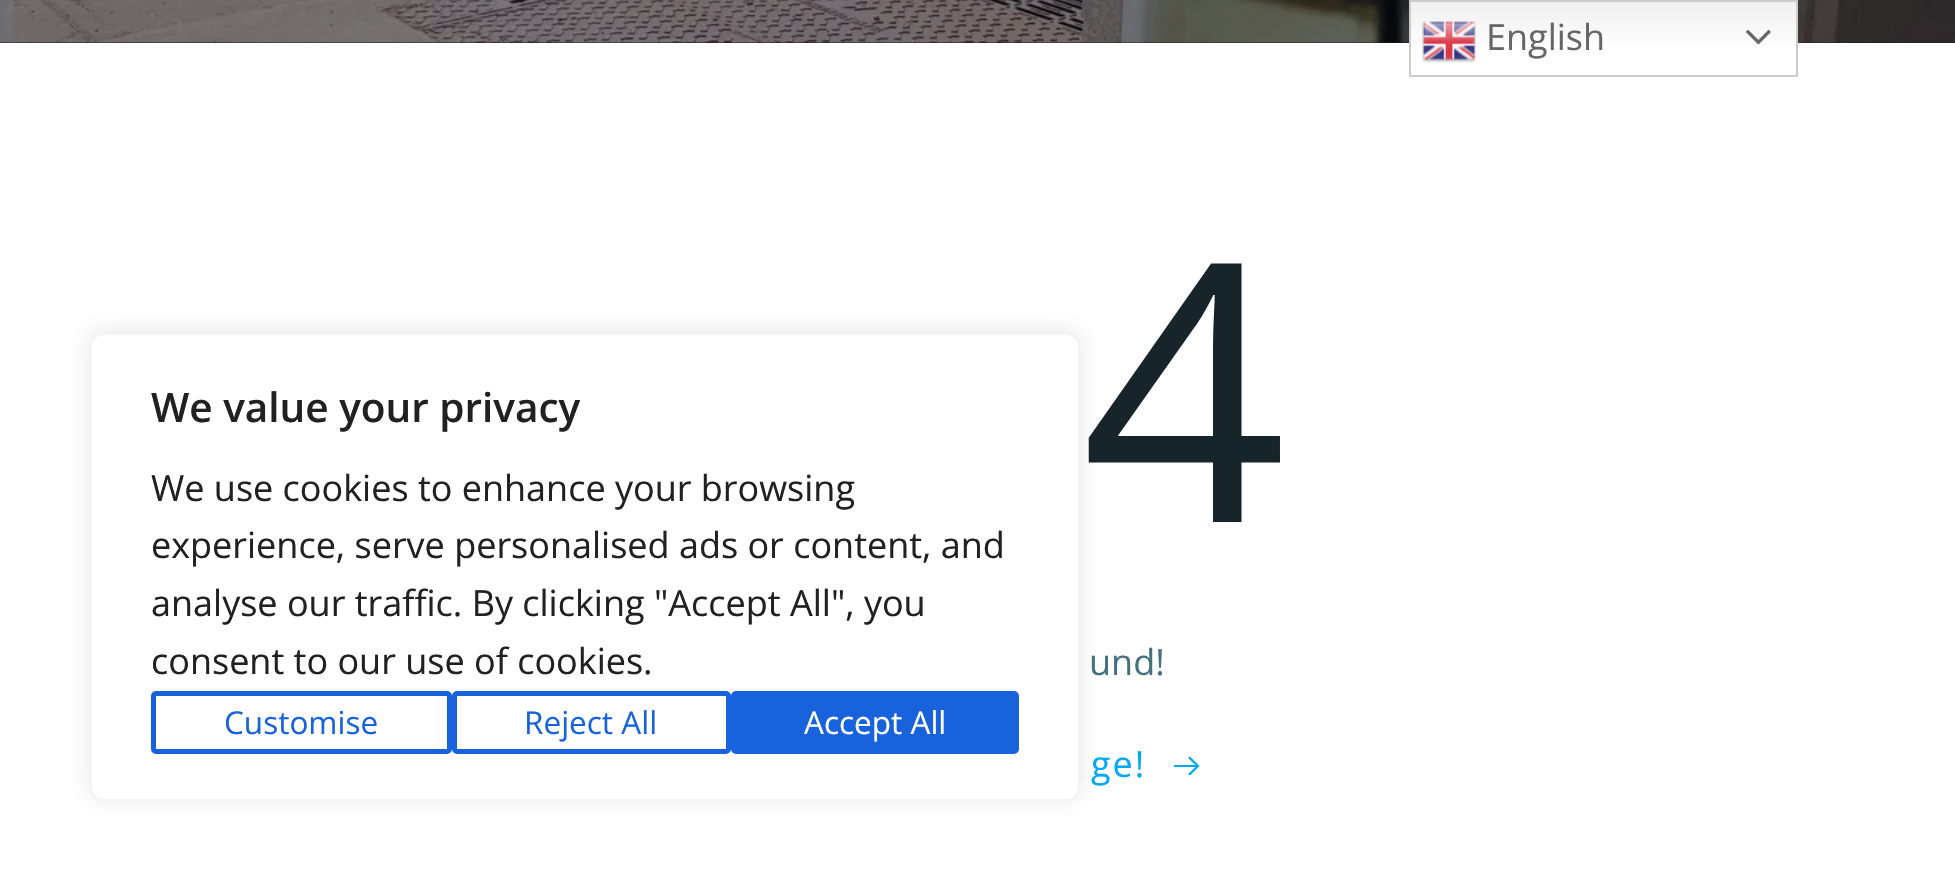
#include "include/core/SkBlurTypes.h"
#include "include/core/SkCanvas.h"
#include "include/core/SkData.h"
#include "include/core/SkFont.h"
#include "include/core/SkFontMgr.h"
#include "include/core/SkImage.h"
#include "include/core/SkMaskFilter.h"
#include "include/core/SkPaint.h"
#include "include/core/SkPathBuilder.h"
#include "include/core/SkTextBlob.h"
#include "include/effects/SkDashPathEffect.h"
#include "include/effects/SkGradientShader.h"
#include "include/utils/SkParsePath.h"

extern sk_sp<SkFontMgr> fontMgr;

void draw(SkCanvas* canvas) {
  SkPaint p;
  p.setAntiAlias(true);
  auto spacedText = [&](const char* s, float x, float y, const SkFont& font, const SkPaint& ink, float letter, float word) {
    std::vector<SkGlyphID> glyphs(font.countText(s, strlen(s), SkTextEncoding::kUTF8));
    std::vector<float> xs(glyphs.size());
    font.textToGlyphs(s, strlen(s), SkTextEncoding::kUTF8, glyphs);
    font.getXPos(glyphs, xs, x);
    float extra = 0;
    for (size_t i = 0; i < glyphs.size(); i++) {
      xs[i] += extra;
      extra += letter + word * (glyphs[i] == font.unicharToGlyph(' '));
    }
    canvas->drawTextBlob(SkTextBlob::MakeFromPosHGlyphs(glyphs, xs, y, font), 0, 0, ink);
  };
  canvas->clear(SK_ColorWHITE);
  p.setColor(SkColorSetRGB(27, 30, 31));
  canvas->drawRect(SkRect::MakeLTRB(0, 42, 1955, 43), p);
  canvas->drawImageRect(SkImages::DeferredFromEncodedData(SkData::MakeFromFileName("images/3.png")), SkRect::MakeLTRB(0, 0, 1955, 43), SkSamplingOptions());
  {
    const SkColor colors[] = {SkColorSetRGB(239, 239, 239), SK_ColorWHITE};
    const float stops[] = {0, 0.7f};
    const SkPoint ends[] = {{1603, 0}, {1603, 77}};
    p.setShader(SkGradientShader::MakeLinear(ends, colors, stops, 2, SkTileMode::kClamp));
    p.setAlpha(255);
  }
  canvas->drawRect(SkRect::MakeLTRB(1411, 2, 1796, 45), p);
  p.setStyle(SkPaint::kStroke_Style);
  p.setStrokeWidth(2);
  p.setShader(nullptr);
  p.setColor(SkColorSetRGB(204, 204, 204));
  canvas->drawRect(SkRect::MakeLTRB(1410, 1, 1797, 76), p);
  canvas->drawImageRect(SkImages::DeferredFromEncodedData(SkData::MakeFromFileName("images/1.png")), SkRect::MakeLTRB(1422, 21, 1476, 63), SkSamplingOptions());
  canvas->drawImageRect(SkImages::DeferredFromEncodedData(SkData::MakeFromFileName("images/2.png")), SkRect::MakeLTRB(1746, 30, 1771, 45), SkSamplingOptions());
  p.setStyle(SkPaint::kFill_Style);
  p.setColor(SkColorSetARGB(77, 172, 171, 171));
  p.setMaskFilter(SkMaskFilter::MakeBlur(kNormal_SkBlurStyle, 11));
  canvas->drawRoundRect(SkRect::MakeLTRB(90, 331, 1080, 799), 14, 14, p);
  p.setMaskFilter(nullptr);
  p.setColor(SK_ColorWHITE);
  canvas->drawRoundRect(SkRect::MakeLTRB(91, 334, 1079, 800), 13, 13, p);
  p.setStyle(SkPaint::kStroke_Style);
  p.setColor(SkColorSetRGB(244, 244, 244));
  canvas->drawRoundRect(SkRect::MakeLTRB(91, 334, 1079, 800), 13, 13, p);
  p.setStrokeWidth(5);
  p.setColor(SkColorSetRGB(24, 99, 220));
  canvas->drawRoundRect(SkRect::MakeLTRB(153.5f, 693.5f, 449.5f, 751.5f), 2.5f, 2.5f, p);
  canvas->drawRoundRect(SkRect::MakeLTRB(454.5f, 693.5f, 728.5f, 751.5f), 2.5f, 2.5f, p);
  p.setStyle(SkPaint::kFill_Style);
  canvas->drawRoundRect(SkRect::MakeLTRB(733.5f, 693.5f, 1016.5f, 751.5f), 2.5f, 2.5f, p);
  p.setStyle(SkPaint::kStroke_Style);
  canvas->drawRoundRect(SkRect::MakeLTRB(733.5f, 693.5f, 1016.5f, 751.5f), 2.5f, 2.5f, p);
  p.setStyle(SkPaint::kFill_Style);
  p.setColor(SkColorSetRGB(3, 169, 244));
  canvas->drawPath(SkPathBuilder().moveTo(1190, 756.5f).lineTo(1199.5f, 766).lineTo(1190, 775.5f).lineTo(1188, 774).lineTo(1195.5f, 767).lineTo(1174, 767).lineTo(1174, 765).lineTo(1195.5f, 765).lineTo(1188, 758).close().detach(), p);
  SkFont font1(fontMgr->matchFamilyStyle("Open Sans", SkFontStyle::Normal()), 36);
  font1.setSubpixel(true);
  p.setColor(SkColorSetRGB(102, 102, 102));
  canvas->drawString("English", 1486, 50, font1, p);
  SkFont font2(fontMgr->matchFamilyStyle("Open Sans", SkFontStyle(600, SkFontStyle::kNormal_Width, SkFontStyle::kUpright_Slant)), 40.5f);
  font2.setSubpixel(true);
  p.setColor(SkColorSetRGB(33, 33, 33));
  canvas->drawString("We value your privacy", 151, 422, font2, p);
  canvas->drawString("We use cookies to enhance your browsing", 151, 501, font1, p);
  canvas->drawString("experience, serve personalised ads or content, and", 151, 558, font1, p);
  canvas->drawString("analyse our traffic. By clicking \"Accept All\", you", 151, 616, font1, p);
  canvas->drawString("consent to our use of cookies.", 151, 674, font1, p);
  SkFont font3(fontMgr->matchFamilyStyle("Open Sans", SkFontStyle::Normal()), 31.5f);
  font3.setSubpixel(true);
  p.setColor(SkColorSetRGB(24, 99, 220));
  canvas->drawString("Customise", 224, 734, font3, p);
  canvas->drawString("Reject All", 524, 734, font3, p);
  p.setColor(SK_ColorWHITE);
  canvas->drawString("Accept All", 804, 734, font3, p);
  SkFont font4(fontMgr->matchFamilyStyle("Open Sans", SkFontStyle::Normal()), 360);
  font4.setSubpixel(true);
  p.setColor(SkColorSetRGB(23, 37, 42));
  canvas->drawString("4", 1081, 522, font4, p);
  p.setColor(SkColorSetRGB(70, 112, 127));
  canvas->drawString("und!", 1089, 675, font1, p);
  p.setColor(SkColorSetRGB(3, 169, 244));
  spacedText("ge!", 1091, 777, font1, p, 2, 0);
}
